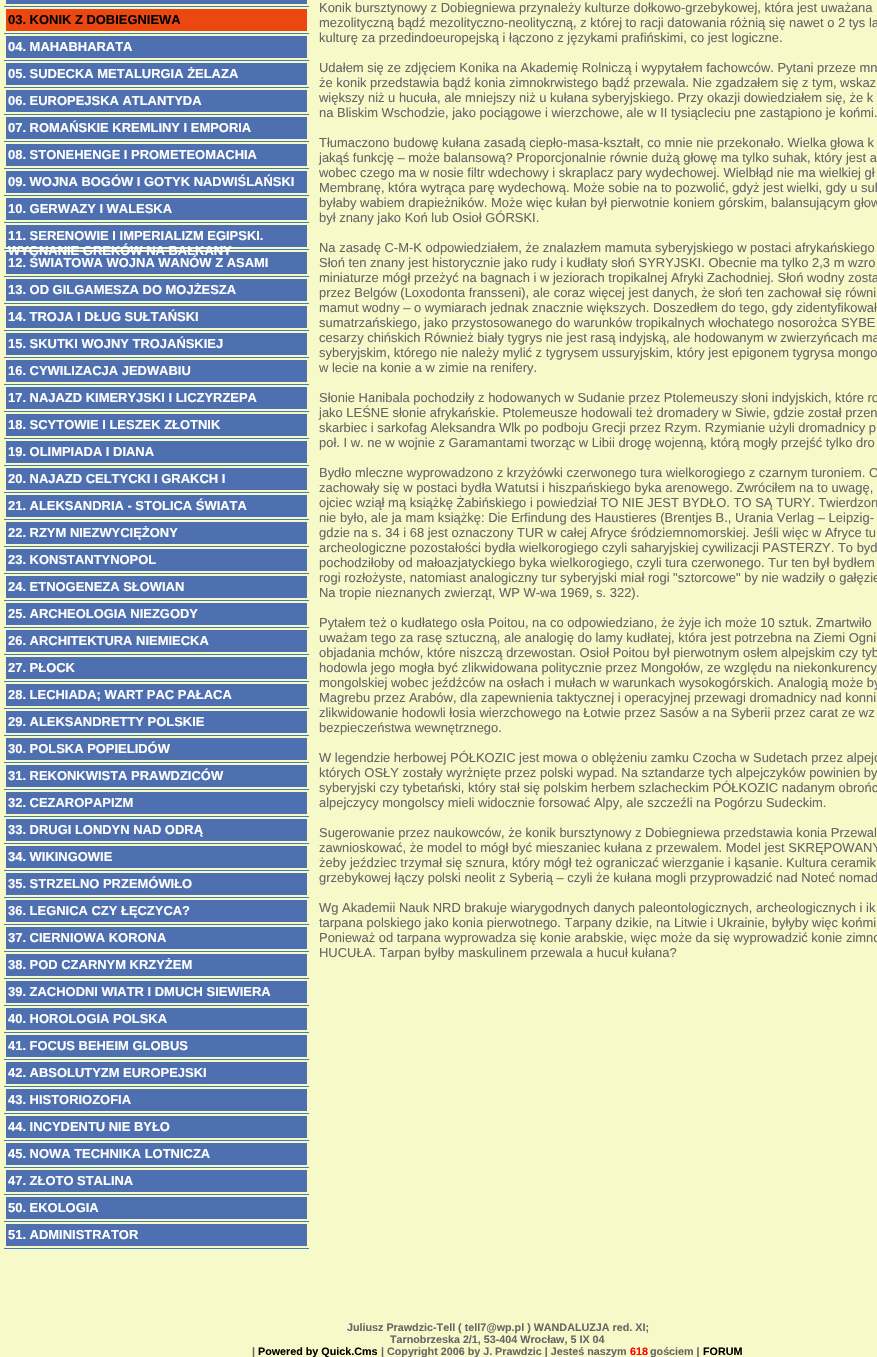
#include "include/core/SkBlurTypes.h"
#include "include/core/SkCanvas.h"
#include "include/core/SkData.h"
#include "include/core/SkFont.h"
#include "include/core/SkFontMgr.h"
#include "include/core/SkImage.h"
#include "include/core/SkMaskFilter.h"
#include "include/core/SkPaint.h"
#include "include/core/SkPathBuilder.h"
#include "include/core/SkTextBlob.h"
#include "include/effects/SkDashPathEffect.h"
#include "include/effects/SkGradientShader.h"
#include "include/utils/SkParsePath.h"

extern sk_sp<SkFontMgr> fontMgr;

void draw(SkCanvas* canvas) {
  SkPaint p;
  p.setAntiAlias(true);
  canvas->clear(SkColorSetRGB(248, 249, 201));
  p.setColor(SkColorSetRGB(66, 126, 177));
  canvas->drawRect(SkRect::MakeLTRB(4, 6, 309, 7), p);
  p.setColor(SkColorSetRGB(78, 111, 176));
  canvas->drawRect(SkRect::MakeLTRB(6, 0, 307, 4), p);
  p.setColor(SkColorSetRGB(66, 126, 177));
  canvas->drawRect(SkRect::MakeLTRB(4, 33, 309, 34), p);
  p.setColor(SkColorSetRGB(236, 71, 17));
  canvas->drawRect(SkRect::MakeLTRB(6, 9, 307, 31), p);
  p.setColor(SkColorSetRGB(66, 126, 177));
  canvas->drawRect(SkRect::MakeLTRB(4, 60, 309, 61), p);
  p.setColor(SkColorSetRGB(78, 111, 176));
  canvas->drawRect(SkRect::MakeLTRB(6, 36, 307, 58), p);
  p.setColor(SkColorSetRGB(66, 126, 177));
  canvas->drawRect(SkRect::MakeLTRB(4, 87, 309, 88), p);
  p.setColor(SkColorSetRGB(78, 111, 176));
  canvas->drawRect(SkRect::MakeLTRB(6, 63, 307, 85), p);
  p.setColor(SkColorSetRGB(66, 126, 177));
  canvas->drawRect(SkRect::MakeLTRB(4, 114, 309, 115), p);
  p.setColor(SkColorSetRGB(78, 111, 176));
  canvas->drawRect(SkRect::MakeLTRB(6, 90, 307, 112), p);
  p.setColor(SkColorSetRGB(66, 126, 177));
  canvas->drawRect(SkRect::MakeLTRB(4, 141, 309, 142), p);
  p.setColor(SkColorSetRGB(78, 111, 176));
  canvas->drawRect(SkRect::MakeLTRB(6, 117, 307, 139), p);
  p.setColor(SkColorSetRGB(66, 126, 177));
  canvas->drawRect(SkRect::MakeLTRB(4, 168, 309, 169), p);
  p.setColor(SkColorSetRGB(78, 111, 176));
  canvas->drawRect(SkRect::MakeLTRB(6, 144, 307, 166), p);
  p.setColor(SkColorSetRGB(66, 126, 177));
  canvas->drawRect(SkRect::MakeLTRB(4, 195, 309, 196), p);
  p.setColor(SkColorSetRGB(78, 111, 176));
  canvas->drawRect(SkRect::MakeLTRB(6, 171, 307, 193), p);
  p.setColor(SkColorSetRGB(66, 126, 177));
  canvas->drawRect(SkRect::MakeLTRB(4, 222, 309, 223), p);
  p.setColor(SkColorSetRGB(78, 111, 176));
  canvas->drawRect(SkRect::MakeLTRB(6, 198, 307, 220), p);
  p.setColor(SkColorSetRGB(66, 126, 177));
  canvas->drawRect(SkRect::MakeLTRB(4, 249, 309, 250), p);
  p.setColor(SkColorSetRGB(78, 111, 176));
  canvas->drawRect(SkRect::MakeLTRB(6, 225, 307, 247), p);
  p.setColor(SkColorSetRGB(66, 126, 177));
  canvas->drawRect(SkRect::MakeLTRB(4, 276, 309, 277), p);
  p.setColor(SkColorSetRGB(78, 111, 176));
  canvas->drawRect(SkRect::MakeLTRB(6, 252, 307, 274), p);
  p.setColor(SkColorSetRGB(66, 126, 177));
  canvas->drawRect(SkRect::MakeLTRB(4, 303, 309, 304), p);
  p.setColor(SkColorSetRGB(78, 111, 176));
  canvas->drawRect(SkRect::MakeLTRB(6, 279, 307, 301), p);
  p.setColor(SkColorSetRGB(66, 126, 177));
  canvas->drawRect(SkRect::MakeLTRB(4, 330, 309, 331), p);
  p.setColor(SkColorSetRGB(78, 111, 176));
  canvas->drawRect(SkRect::MakeLTRB(6, 306, 307, 328), p);
  p.setColor(SkColorSetRGB(66, 126, 177));
  canvas->drawRect(SkRect::MakeLTRB(4, 357, 309, 358), p);
  p.setColor(SkColorSetRGB(78, 111, 176));
  canvas->drawRect(SkRect::MakeLTRB(6, 333, 307, 355), p);
  p.setColor(SkColorSetRGB(66, 126, 177));
  canvas->drawRect(SkRect::MakeLTRB(4, 384, 309, 385), p);
  p.setColor(SkColorSetRGB(78, 111, 176));
  canvas->drawRect(SkRect::MakeLTRB(6, 360, 307, 382), p);
  p.setColor(SkColorSetRGB(66, 126, 177));
  canvas->drawRect(SkRect::MakeLTRB(4, 411, 309, 412), p);
  p.setColor(SkColorSetRGB(78, 111, 176));
  canvas->drawRect(SkRect::MakeLTRB(6, 387, 307, 409), p);
  p.setColor(SkColorSetRGB(66, 126, 177));
  canvas->drawRect(SkRect::MakeLTRB(4, 438, 309, 439), p);
  p.setColor(SkColorSetRGB(78, 111, 176));
  canvas->drawRect(SkRect::MakeLTRB(6, 414, 307, 436), p);
  p.setColor(SkColorSetRGB(66, 126, 177));
  canvas->drawRect(SkRect::MakeLTRB(4, 465, 309, 466), p);
  p.setColor(SkColorSetRGB(78, 111, 176));
  canvas->drawRect(SkRect::MakeLTRB(6, 441, 307, 463), p);
  p.setColor(SkColorSetRGB(66, 126, 177));
  canvas->drawRect(SkRect::MakeLTRB(4, 492, 309, 493), p);
  p.setColor(SkColorSetRGB(78, 111, 176));
  canvas->drawRect(SkRect::MakeLTRB(6, 468, 307, 490), p);
  p.setColor(SkColorSetRGB(66, 126, 177));
  canvas->drawRect(SkRect::MakeLTRB(4, 519, 309, 520), p);
  p.setColor(SkColorSetRGB(78, 111, 176));
  canvas->drawRect(SkRect::MakeLTRB(6, 495, 307, 517), p);
  p.setColor(SkColorSetRGB(66, 126, 177));
  canvas->drawRect(SkRect::MakeLTRB(4, 546, 309, 547), p);
  p.setColor(SkColorSetRGB(78, 111, 176));
  canvas->drawRect(SkRect::MakeLTRB(6, 522, 307, 544), p);
  p.setColor(SkColorSetRGB(66, 126, 177));
  canvas->drawRect(SkRect::MakeLTRB(4, 573, 309, 574), p);
  p.setColor(SkColorSetRGB(78, 111, 176));
  canvas->drawRect(SkRect::MakeLTRB(6, 549, 307, 571), p);
  p.setColor(SkColorSetRGB(66, 126, 177));
  canvas->drawRect(SkRect::MakeLTRB(4, 600, 309, 601), p);
  p.setColor(SkColorSetRGB(78, 111, 176));
  canvas->drawRect(SkRect::MakeLTRB(6, 576, 307, 598), p);
  p.setColor(SkColorSetRGB(66, 126, 177));
  canvas->drawRect(SkRect::MakeLTRB(4, 627, 309, 628), p);
  p.setColor(SkColorSetRGB(78, 111, 176));
  canvas->drawRect(SkRect::MakeLTRB(6, 603, 307, 625), p);
  p.setColor(SkColorSetRGB(66, 126, 177));
  canvas->drawRect(SkRect::MakeLTRB(4, 654, 309, 655), p);
  p.setColor(SkColorSetRGB(78, 111, 176));
  canvas->drawRect(SkRect::MakeLTRB(6, 630, 307, 652), p);
  p.setColor(SkColorSetRGB(66, 126, 177));
  canvas->drawRect(SkRect::MakeLTRB(4, 681, 309, 682), p);
  p.setColor(SkColorSetRGB(78, 111, 176));
  canvas->drawRect(SkRect::MakeLTRB(6, 657, 307, 679), p);
  p.setColor(SkColorSetRGB(66, 126, 177));
  canvas->drawRect(SkRect::MakeLTRB(4, 708, 309, 709), p);
  p.setColor(SkColorSetRGB(78, 111, 176));
  canvas->drawRect(SkRect::MakeLTRB(6, 684, 307, 706), p);
  p.setColor(SkColorSetRGB(66, 126, 177));
  canvas->drawRect(SkRect::MakeLTRB(4, 735, 309, 736), p);
  p.setColor(SkColorSetRGB(78, 111, 176));
  canvas->drawRect(SkRect::MakeLTRB(6, 711, 307, 733), p);
  p.setColor(SkColorSetRGB(66, 126, 177));
  canvas->drawRect(SkRect::MakeLTRB(4, 762, 309, 763), p);
  p.setColor(SkColorSetRGB(78, 111, 176));
  canvas->drawRect(SkRect::MakeLTRB(6, 738, 307, 760), p);
  p.setColor(SkColorSetRGB(66, 126, 177));
  canvas->drawRect(SkRect::MakeLTRB(4, 789, 309, 790), p);
  p.setColor(SkColorSetRGB(78, 111, 176));
  canvas->drawRect(SkRect::MakeLTRB(6, 765, 307, 787), p);
  p.setColor(SkColorSetRGB(66, 126, 177));
  canvas->drawRect(SkRect::MakeLTRB(4, 816, 309, 817), p);
  p.setColor(SkColorSetRGB(78, 111, 176));
  canvas->drawRect(SkRect::MakeLTRB(6, 792, 307, 814), p);
  p.setColor(SkColorSetRGB(66, 126, 177));
  canvas->drawRect(SkRect::MakeLTRB(4, 843, 309, 844), p);
  p.setColor(SkColorSetRGB(78, 111, 176));
  canvas->drawRect(SkRect::MakeLTRB(6, 819, 307, 841), p);
  p.setColor(SkColorSetRGB(66, 126, 177));
  canvas->drawRect(SkRect::MakeLTRB(4, 870, 309, 871), p);
  p.setColor(SkColorSetRGB(78, 111, 176));
  canvas->drawRect(SkRect::MakeLTRB(6, 846, 307, 868), p);
  p.setColor(SkColorSetRGB(66, 126, 177));
  canvas->drawRect(SkRect::MakeLTRB(4, 897, 309, 898), p);
  p.setColor(SkColorSetRGB(78, 111, 176));
  canvas->drawRect(SkRect::MakeLTRB(6, 873, 307, 895), p);
  p.setColor(SkColorSetRGB(66, 126, 177));
  canvas->drawRect(SkRect::MakeLTRB(4, 924, 309, 925), p);
  p.setColor(SkColorSetRGB(78, 111, 176));
  canvas->drawRect(SkRect::MakeLTRB(6, 900, 307, 922), p);
  p.setColor(SkColorSetRGB(66, 126, 177));
  canvas->drawRect(SkRect::MakeLTRB(4, 951, 309, 952), p);
  p.setColor(SkColorSetRGB(78, 111, 176));
  canvas->drawRect(SkRect::MakeLTRB(6, 927, 307, 949), p);
  p.setColor(SkColorSetRGB(66, 126, 177));
  canvas->drawRect(SkRect::MakeLTRB(4, 978, 309, 979), p);
  p.setColor(SkColorSetRGB(78, 111, 176));
  canvas->drawRect(SkRect::MakeLTRB(6, 954, 307, 976), p);
  p.setColor(SkColorSetRGB(66, 126, 177));
  canvas->drawRect(SkRect::MakeLTRB(4, 1005, 309, 1006), p);
  p.setColor(SkColorSetRGB(78, 111, 176));
  canvas->drawRect(SkRect::MakeLTRB(6, 981, 307, 1003), p);
  p.setColor(SkColorSetRGB(66, 126, 177));
  canvas->drawRect(SkRect::MakeLTRB(4, 1032, 309, 1033), p);
  p.setColor(SkColorSetRGB(78, 111, 176));
  canvas->drawRect(SkRect::MakeLTRB(6, 1008, 307, 1030), p);
  p.setColor(SkColorSetRGB(66, 126, 177));
  canvas->drawRect(SkRect::MakeLTRB(4, 1059, 309, 1060), p);
  p.setColor(SkColorSetRGB(78, 111, 176));
  canvas->drawRect(SkRect::MakeLTRB(6, 1035, 307, 1057), p);
  p.setColor(SkColorSetRGB(66, 126, 177));
  canvas->drawRect(SkRect::MakeLTRB(4, 1086, 309, 1087), p);
  p.setColor(SkColorSetRGB(78, 111, 176));
  canvas->drawRect(SkRect::MakeLTRB(6, 1062, 307, 1084), p);
  p.setColor(SkColorSetRGB(66, 126, 177));
  canvas->drawRect(SkRect::MakeLTRB(4, 1113, 309, 1114), p);
  p.setColor(SkColorSetRGB(78, 111, 176));
  canvas->drawRect(SkRect::MakeLTRB(6, 1089, 307, 1111), p);
  p.setColor(SkColorSetRGB(66, 126, 177));
  canvas->drawRect(SkRect::MakeLTRB(4, 1140, 309, 1141), p);
  p.setColor(SkColorSetRGB(78, 111, 176));
  canvas->drawRect(SkRect::MakeLTRB(6, 1116, 307, 1138), p);
  p.setColor(SkColorSetRGB(66, 126, 177));
  canvas->drawRect(SkRect::MakeLTRB(4, 1167, 309, 1168), p);
  p.setColor(SkColorSetRGB(78, 111, 176));
  canvas->drawRect(SkRect::MakeLTRB(6, 1143, 307, 1165), p);
  p.setColor(SkColorSetRGB(66, 126, 177));
  canvas->drawRect(SkRect::MakeLTRB(4, 1194, 309, 1195), p);
  p.setColor(SkColorSetRGB(78, 111, 176));
  canvas->drawRect(SkRect::MakeLTRB(6, 1170, 307, 1192), p);
  p.setColor(SkColorSetRGB(66, 126, 177));
  canvas->drawRect(SkRect::MakeLTRB(4, 1221, 309, 1222), p);
  p.setColor(SkColorSetRGB(78, 111, 176));
  canvas->drawRect(SkRect::MakeLTRB(6, 1197, 307, 1219), p);
  p.setColor(SkColorSetRGB(66, 126, 177));
  canvas->drawRect(SkRect::MakeLTRB(4, 1248, 309, 1249), p);
  p.setColor(SkColorSetRGB(78, 111, 176));
  canvas->drawRect(SkRect::MakeLTRB(6, 1224, 307, 1246), p);
  SkFont font1(fontMgr->matchFamilyStyle("Liberation Sans", SkFontStyle::Bold()), 12.95f);
  font1.setSubpixel(true);
  p.setColor(SK_ColorBLACK);
  canvas->drawString("03. KONIK Z DOBIEGNIEWA", 8, 24, font1, p);
  p.setColor(SK_ColorWHITE);
  canvas->drawString("04. MAHABHARATA", 8, 51, font1, p);
  canvas->drawString("05. SUDECKA METALURGIA ŻELAZA", 8, 78, font1, p);
  canvas->drawString("06. EUROPEJSKA ATLANTYDA", 8, 105, font1, p);
  canvas->drawString("07. ROMAŃSKIE KREMLINY I EMPORIA", 8, 132, font1, p);
  canvas->drawString("08. STONEHENGE I PROMETEOMACHIA", 8, 159, font1, p);
  canvas->drawString("09. WOJNA BOGÓW I GOTYK NADWIŚLAŃSKI", 8, 186, font1, p);
  canvas->drawString("10. GERWAZY I WALESKA", 8, 213, font1, p);
  canvas->drawString("11. SERENOWIE I IMPERIALIZM EGIPSKI.", 8, 240, font1, p);
  canvas->drawString("WYGNANIE GREKÓW NA BAŁKANY", 8, 255, font1, p);
  canvas->drawString("12. ŚWIATOWA WOJNA WANÓW Z ASAMI", 8, 267, font1, p);
  canvas->drawString("13. OD GILGAMESZA DO MOJŻESZA", 8, 294, font1, p);
  canvas->drawString("14. TROJA I DŁUG SUŁTAŃSKI", 8, 321, font1, p);
  canvas->drawString("15. SKUTKI WOJNY TROJAŃSKIEJ", 8, 348, font1, p);
  canvas->drawString("16. CYWILIZACJA JEDWABIU", 8, 375, font1, p);
  canvas->drawString("17. NAJAZD KIMERYJSKI I LICZYRZEPA", 8, 402, font1, p);
  canvas->drawString("18. SCYTOWIE I LESZEK ZŁOTNIK", 8, 429, font1, p);
  canvas->drawString("19. OLIMPIADA I DIANA", 8, 456, font1, p);
  canvas->drawString("20. NAJAZD CELTYCKI I GRAKCH I", 8, 483, font1, p);
  canvas->drawString("21. ALEKSANDRIA - STOLICA ŚWIATA", 8, 510, font1, p);
  canvas->drawString("22. RZYM NIEZWYCIĘŻONY", 8, 537, font1, p);
  canvas->drawString("23. KONSTANTYNOPOL", 8, 564, font1, p);
  canvas->drawString("24. ETNOGENEZA SŁOWIAN", 8, 591, font1, p);
  canvas->drawString("25. ARCHEOLOGIA NIEZGODY", 8, 618, font1, p);
  canvas->drawString("26. ARCHITEKTURA NIEMIECKA", 8, 645, font1, p);
  canvas->drawString("27. PŁOCK", 8, 672, font1, p);
  canvas->drawString("28. LECHIADA; WART PAC PAŁACA", 8, 699, font1, p);
  canvas->drawString("29. ALEKSANDRETTY POLSKIE", 8, 726, font1, p);
  canvas->drawString("30. POLSKA POPIELIDÓW", 8, 753, font1, p);
  canvas->drawString("31. REKONKWISTA PRAWDZICÓW", 8, 780, font1, p);
  canvas->drawString("32. CEZAROPAPIZM", 8, 807, font1, p);
  canvas->drawString("33. DRUGI LONDYN NAD ODRĄ", 8, 834, font1, p);
  canvas->drawString("34. WIKINGOWIE", 8, 861, font1, p);
  canvas->drawString("35. STRZELNO PRZEMÓWIŁO", 8, 888, font1, p);
  canvas->drawString("36. LEGNICA CZY ŁĘCZYCA?", 8, 915, font1, p);
  canvas->drawString("37. CIERNIOWA KORONA", 8, 942, font1, p);
  canvas->drawString("38. POD CZARNYM KRZYŻEM", 8, 969, font1, p);
  canvas->drawString("39. ZACHODNI WIATR I DMUCH SIEWIERA", 8, 996, font1, p);
  canvas->drawString("40. HOROLOGIA POLSKA", 8, 1023, font1, p);
  canvas->drawString("41. FOCUS BEHEIM GLOBUS", 8, 1050, font1, p);
  canvas->drawString("42. ABSOLUTYZM EUROPEJSKI", 8, 1077, font1, p);
  canvas->drawString("43. HISTORIOZOFIA", 8, 1104, font1, p);
  canvas->drawString("44. INCYDENTU NIE BYŁO", 8, 1131, font1, p);
  canvas->drawString("45. NOWA TECHNIKA LOTNICZA", 8, 1158, font1, p);
  canvas->drawString("47. ZŁOTO STALINA", 8, 1185, font1, p);
  canvas->drawString("50. EKOLOGIA", 8, 1212, font1, p);
  canvas->drawString("51. ADMINISTRATOR", 8, 1239, font1, p);
  SkFont font2(fontMgr->matchFamilyStyle("Liberation Sans", SkFontStyle::Normal()), 12.95f);
  font2.setSubpixel(true);
  p.setColor(SkColorSetRGB(102, 102, 102));
  canvas->drawString("Konik bursztynowy z Dobiegniewa przynależy kulturze dołkowo-grzebykowej, która jest uważana", 319, 12, font2, p);
  canvas->drawString("mezolityczną bądź mezolityczno-neolityczną, z której to racji datowania różnią się nawet o 2 tys la", 319, 27, font2, p);
  canvas->drawString("kulturę za przedindoeuropejską i łączono z językami prafińskimi, co jest logiczne.", 319, 42, font2, p);
  canvas->drawString("Udałem się ze zdjęciem Konika na Akademię Rolniczą i wypytałem fachowców. Pytani przeze mn", 319, 72, font2, p);
  canvas->drawString("że konik przedstawia bądź konia zimnokrwistego bądź przewala. Nie zgadzałem się z tym, wskaz", 319, 87, font2, p);
  canvas->drawString("większy niż u hucuła, ale mniejszy niż u kułana syberyjskiego. Przy okazji dowiedziałem się, że k", 319, 102, font2, p);
  canvas->drawString("na Bliskim Wschodzie, jako pociągowe i wierzchowe, ale w II tysiącleciu pne zastąpiono je końmi.", 319, 117, font2, p);
  canvas->drawString("Tłumaczono budowę kułana zasadą ciepło-masa-kształt, co mnie nie przekonało. Wielka głowa k", 319, 147, font2, p);
  canvas->drawString("jakąś funkcję – może balansową? Proporcjonalnie równie dużą głowę ma tylko suhak, który jest a", 319, 162, font2, p);
  canvas->drawString("wobec czego ma w nosie filtr wdechowy i skraplacz pary wydechowej. Wielbłąd nie ma wielkiej gł", 319, 177, font2, p);
  canvas->drawString("Membranę, która wytrąca parę wydechową. Może sobie na to pozwolić, gdyż jest wielki, gdy u suh", 319, 192, font2, p);
  canvas->drawString("byłaby wabiem drapieżników. Może więc kułan był pierwotnie koniem górskim, balansującym głow", 319, 207, font2, p);
  canvas->drawString("był znany jako Koń lub Osioł GÓRSKI.", 319, 222, font2, p);
  canvas->drawString("Na zasadę C-M-K odpowiedziałem, że znalazłem mamuta syberyjskiego w postaci afrykańskiego", 319, 252, font2, p);
  canvas->drawString("Słoń ten znany jest historycznie jako rudy i kudłaty słoń SYRYJSKI. Obecnie ma tylko 2,3 m wzro", 319, 267, font2, p);
  canvas->drawString("miniaturze mógł przeżyć na bagnach i w jeziorach tropikalnej Afryki Zachodniej. Słoń wodny zosta", 319, 282, font2, p);
  canvas->drawString("przez Belgów (Loxodonta fransseni), ale coraz więcej jest danych, że słoń ten zachował się równi", 319, 297, font2, p);
  canvas->drawString("mamut wodny – o wymiarach jednak znacznie większych. Doszedłem do tego, gdy zidentyfikował", 319, 312, font2, p);
  canvas->drawString("sumatrzańskiego, jako przystosowanego do warunków tropikalnych włochatego nosorożca SYBE", 319, 327, font2, p);
  canvas->drawString("cesarzy chińskich Również biały tygrys nie jest rasą indyjską, ale hodowanym w zwierzyńcach ma", 319, 342, font2, p);
  canvas->drawString("syberyjskim, którego nie należy mylić z tygrysem ussuryjskim, który jest epigonem tygrysa mongo", 319, 357, font2, p);
  canvas->drawString("w lecie na konie a w zimie na renifery.", 319, 372, font2, p);
  canvas->drawString("Słonie Hanibala pochodziły z hodowanych w Sudanie przez Ptolemeuszy słoni indyjskich, które ro", 319, 402, font2, p);
  canvas->drawString("jako LEŚNE słonie afrykańskie. Ptolemeusze hodowali też dromadery w Siwie, gdzie został przen", 319, 417, font2, p);
  canvas->drawString("skarbiec i sarkofag Aleksandra Wlk po podboju Grecji przez Rzym. Rzymianie użyli dromadnicy p", 319, 432, font2, p);
  canvas->drawString("poł. I w. ne w wojnie z Garamantami tworząc w Libii drogę wojenną, którą mogły przejść tylko dro", 319, 447, font2, p);
  canvas->drawString("Bydło mleczne wyprowadzono z krzyżówki czerwonego tura wielkorogiego z czarnym turoniem. O", 319, 477, font2, p);
  canvas->drawString("zachowały się w postaci bydła Watutsi i hiszpańskiego byka arenowego. Zwróciłem na to uwagę,", 319, 492, font2, p);
  canvas->drawString("ojciec wziął mą książkę Żabińskiego i powiedział TO NIE JEST BYDŁO. TO SĄ TURY. Twierdzon", 319, 507, font2, p);
  canvas->drawString("nie było, ale ja mam książkę: Die Erfindung des Haustieres (Brentjes B., Urania Verlag – Leipzig-", 319, 522, font2, p);
  canvas->drawString("gdzie na s. 34 i 68 jest oznaczony TUR w całej Afryce śródziemnomorskiej. Jeśli więc w Afryce tu", 319, 537, font2, p);
  canvas->drawString("archeologiczne pozostałości bydła wielkorogiego czyli saharyjskiej cywilizacji PASTERZY. To byd", 319, 552, font2, p);
  canvas->drawString("pochodziłoby od małoazjatyckiego byka wielkorogiego, czyli tura czerwonego. Tur ten był bydłem", 319, 567, font2, p);
  canvas->drawString("rogi rozłożyste, natomiast analogiczny tur syberyjski miał rogi \"sztorcowe\" by nie wadziły o gałęzie", 319, 582, font2, p);
  canvas->drawString("Na tropie nieznanych zwierząt, WP W-wa 1969, s. 322).", 319, 597, font2, p);
  canvas->drawString("Pytałem też o kudłatego osła Poitou, na co odpowiedziano, że żyje ich może 10 sztuk. Zmartwiło", 319, 627, font2, p);
  canvas->drawString("uważam tego za rasę sztuczną, ale analogię do lamy kudłatej, która jest potrzebna na Ziemi Ogni", 319, 642, font2, p);
  canvas->drawString("objadania mchów, które niszczą drzewostan. Osioł Poitou był pierwotnym osłem alpejskim czy tyb", 319, 657, font2, p);
  canvas->drawString("hodowla jego mogła być zlikwidowana politycznie przez Mongołów, ze względu na niekonkurency", 319, 672, font2, p);
  canvas->drawString("mongolskiej wobec jeźdźców na osłach i mułach w warunkach wysokogórskich. Analogią może by", 319, 687, font2, p);
  canvas->drawString("Magrebu przez Arabów, dla zapewnienia taktycznej i operacyjnej przewagi dromadnicy nad konni", 319, 702, font2, p);
  canvas->drawString("zlikwidowanie hodowli łosia wierzchowego na Łotwie przez Sasów a na Syberii przez carat ze wz", 319, 717, font2, p);
  canvas->drawString("bezpieczeństwa wewnętrznego.", 319, 732, font2, p);
  canvas->drawString("W legendzie herbowej PÓŁKOZIC jest mowa o oblężeniu zamku Czocha w Sudetach przez alpejc", 319, 762, font2, p);
  canvas->drawString("których OSŁY zostały wyrżnięte przez polski wypad. Na sztandarze tych alpejczyków powinien by", 319, 777, font2, p);
  canvas->drawString("syberyjski czy tybetański, który stał się polskim herbem szlacheckim PÓŁKOZIC nadanym obrońc", 319, 792, font2, p);
  canvas->drawString("alpejczycy mongolscy mieli widocznie forsować Alpy, ale szczeźli na Pogórzu Sudeckim.", 319, 807, font2, p);
  canvas->drawString("Sugerowanie przez naukowców, że konik bursztynowy z Dobiegniewa przedstawia konia Przewal", 319, 837, font2, p);
  canvas->drawString("zawnioskować, że model to mógł być mieszaniec kułana z przewalem. Model jest SKRĘPOWANY", 319, 852, font2, p);
  canvas->drawString("żeby jeździec trzymał się sznura, który mógł też ograniczać wierzganie i kąsanie. Kultura ceramik", 319, 867, font2, p);
  canvas->drawString("grzebykowej łączy polski neolit z Syberią – czyli że kułana mogli przyprowadzić nad Noteć nomad", 319, 882, font2, p);
  canvas->drawString("Wg Akademii Nauk NRD brakuje wiarygodnych danych paleontologicznych, archeologicznych i ik", 319, 912, font2, p);
  canvas->drawString("tarpana polskiego jako konia pierwotnego. Tarpany dzikie, na Litwie i Ukrainie, byłyby więc końmi", 319, 927, font2, p);
  canvas->drawString("Ponieważ od tarpana wyprowadza się konie arabskie, więc może da się wyprowadzić konie zimno", 319, 942, font2, p);
  canvas->drawString("HUCUŁA. Tarpan byłby maskulinem przewala a hucuł kułana?", 319, 957, font2, p);
  SkFont font3(fontMgr->matchFamilyStyle("Liberation Sans", SkFontStyle::Bold()), 10.75f);
  font3.setSubpixel(true);
  canvas->drawString("Juliusz Prawdzic-Tell ( tell7@wp.pl ) WANDALUZJA red. XI;", 347, 1331, font3, p);
  canvas->drawString("Tarnobrzeska 2/1, 53-404 Wrocław, 5 IX 04", 390, 1343, font3, p);
  canvas->drawString("|", 252, 1355, font3, p);
  p.setColor(SK_ColorBLACK);
  canvas->drawString("Powered by Quick.Cms", 258, 1355, font3, p);
  p.setColor(SkColorSetRGB(102, 102, 102));
  canvas->drawString("| Copyright 2006 by J. Prawdzic | Jesteś naszym", 381, 1355, font3, p);
  p.setColor(SkColorSetRGB(255, 0, 0));
  canvas->drawString("618", 630, 1355, font3, p);
  p.setColor(SkColorSetRGB(102, 102, 102));
  canvas->drawString("gościem |", 650, 1355, font3, p);
  p.setColor(SK_ColorBLACK);
  canvas->drawString("FORUM", 703, 1355, font3, p);
}
